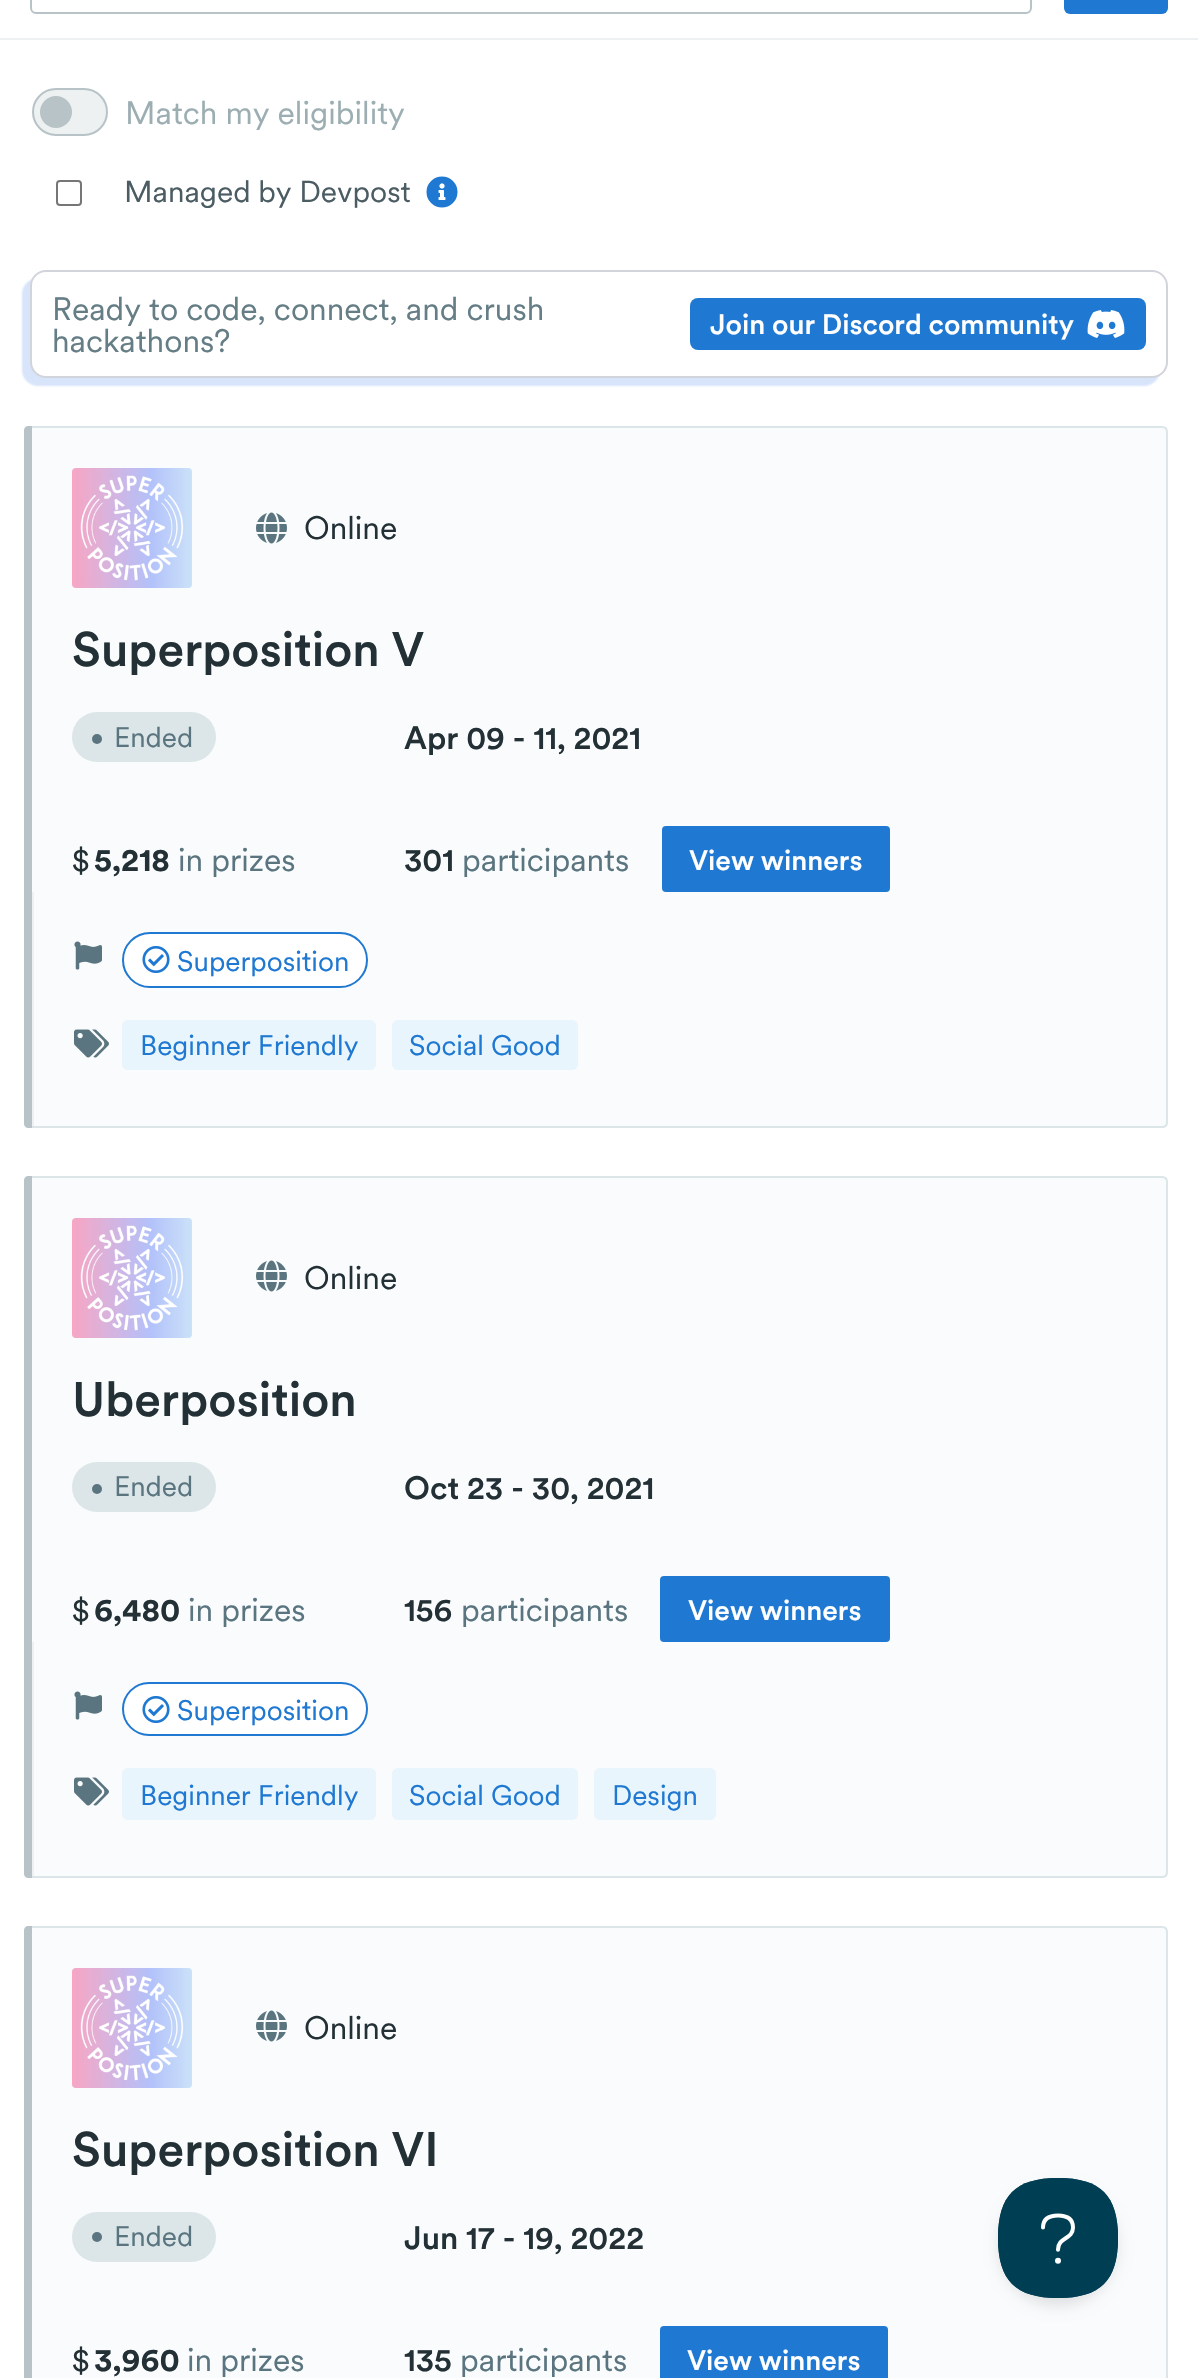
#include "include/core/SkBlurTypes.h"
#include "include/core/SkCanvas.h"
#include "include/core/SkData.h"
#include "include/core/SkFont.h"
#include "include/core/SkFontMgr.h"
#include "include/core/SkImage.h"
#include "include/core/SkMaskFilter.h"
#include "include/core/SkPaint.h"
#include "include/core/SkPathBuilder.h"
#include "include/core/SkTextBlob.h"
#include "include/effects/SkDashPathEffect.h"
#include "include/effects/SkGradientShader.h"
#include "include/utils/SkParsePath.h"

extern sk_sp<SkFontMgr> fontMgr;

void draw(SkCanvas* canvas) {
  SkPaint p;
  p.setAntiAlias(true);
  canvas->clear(SK_ColorWHITE);
  p.setColor(SkColorSetRGB(237, 241, 242));
  canvas->drawRect(SkRect::MakeLTRB(0, 38, 1198, 40), p);
  p.setStyle(SkPaint::kStroke_Style);
  p.setStrokeWidth(2);
  p.setColor(SkColorSetRGB(183, 195, 199));
  canvas->drawRoundRect(SkRect::MakeLTRB(31, -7, 1031, 13), 5, 5, p);
  p.setStyle(SkPaint::kFill_Style);
  p.setColor(SkColorSetRGB(31, 120, 209));
  canvas->drawRoundRect(SkRect::MakeLTRB(1064, -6, 1168, 14), 6, 6, p);
  p.setColor(SkColorSetRGB(237, 241, 242));
  canvas->drawRoundRect(SkRect::MakeLTRB(33, 89, 107, 135), 23, 23, p);
  p.setStyle(SkPaint::kStroke_Style);
  p.setColor(SkColorSetRGB(183, 195, 199));
  canvas->drawRoundRect(SkRect::MakeLTRB(33, 89, 107, 135), 23, 23, p);
  p.setStyle(SkPaint::kFill_Style);
  canvas->drawCircle(56, 112, 16, p);
  p.setStyle(SkPaint::kStroke_Style);
  p.setColor(SkColorSetRGB(118, 118, 118));
  canvas->drawRoundRect(SkRect::MakeLTRB(57, 181, 81, 205), 3, 3, p);
  canvas->drawImageRect(SkImages::DeferredFromEncodedData(SkData::MakeFromFileName("images/1.png")), SkRect::MakeLTRB(426, 176, 458, 208), SkSamplingOptions());
  p.setStyle(SkPaint::kFill_Style);
  p.setColor(SkColorSetARGB(64, 100, 149, 237));
  p.setMaskFilter(SkMaskFilter::MakeBlur(kNormal_SkBlurStyle, 1));
  canvas->drawRoundRect(SkRect::MakeLTRB(22, 278, 1160, 386), 16, 16, p);
  p.setMaskFilter(nullptr);
  p.setColor(SK_ColorWHITE);
  canvas->drawRoundRect(SkRect::MakeLTRB(31, 271, 1167, 377), 15, 15, p);
  p.setStyle(SkPaint::kStroke_Style);
  p.setColor(SkColorSetRGB(209, 213, 219));
  canvas->drawRoundRect(SkRect::MakeLTRB(31, 271, 1167, 377), 15, 15, p);
  p.setStyle(SkPaint::kFill_Style);
  p.setColor(SkColorSetRGB(31, 120, 209));
  canvas->drawRoundRect(SkRect::MakeLTRB(690, 298, 1146, 350), 8, 8, p);
  canvas->drawImageRect(SkImages::DeferredFromEncodedData(SkData::MakeFromFileName("images/2.png")), SkRect::MakeLTRB(1087, 310, 1125, 338), SkSamplingOptions());
  p.setColor(SkColorSetRGB(249, 251, 252));
  canvas->drawPath(SkPathBuilder().moveTo(31, 427).lineTo(1162, 427).cubicTo(1165, 427, 1167, 429, 1167, 432).lineTo(1167, 1122).cubicTo(1167, 1125, 1165, 1127, 1162, 1127).lineTo(31, 1127).close().detach(), p);
  p.setStyle(SkPaint::kStroke_Style);
  p.setColor(SkColorSetRGB(220, 230, 233));
  canvas->drawPath(SkPathBuilder().moveTo(31, 427).lineTo(1162, 427).cubicTo(1165, 427, 1167, 429, 1167, 432).lineTo(1167, 1122).cubicTo(1167, 1125, 1165, 1127, 1162, 1127).lineTo(31, 1127).close().detach(), p);
  p.setStyle(SkPaint::kFill_Style);
  p.setColor(SkColorSetRGB(183, 195, 199));
  canvas->drawPath(SkPathBuilder().moveTo(28, 426).lineTo(32, 426).lineTo(32, 1128).lineTo(28, 1128).cubicTo(26, 1128, 24, 1126, 24, 1124).lineTo(24, 430).cubicTo(24, 428, 26, 426, 28, 426).close().detach(), p);
  canvas->drawImageRect(SkImages::DeferredFromEncodedData(SkData::MakeFromFileName("images/3.png")), SkRect::MakeLTRB(72, 468, 192, 588), SkSamplingOptions());
  canvas->drawImageRect(SkImages::DeferredFromEncodedData(SkData::MakeFromFileName("images/4.png")), SkRect::MakeLTRB(256, 512, 287, 544), SkSamplingOptions());
  p.setColor(SkColorSetRGB(220, 230, 233));
  canvas->drawRoundRect(SkRect::MakeLTRB(72, 712, 216, 762), 25, 25, p);
  p.setColor(SkColorSetRGB(90, 117, 127));
  canvas->drawCircle(97, 739, 5, p);
  p.setColor(SkColorSetRGB(31, 120, 209));
  canvas->drawRoundRect(SkRect::MakeLTRB(662, 826, 890, 892), 4, 4, p);
  p.setColor(SkColorSetRGB(237, 241, 242));
  canvas->drawRect(SkRect::MakeLTRB(32, 892, 34, 1126), p);
  canvas->drawImageRect(SkImages::DeferredFromEncodedData(SkData::MakeFromFileName("images/5.png")), SkRect::MakeLTRB(74, 941, 102, 970), SkSamplingOptions());
  p.setColor(SK_ColorWHITE);
  canvas->drawRoundRect(SkRect::MakeLTRB(123, 933, 367, 987), 27, 27, p);
  p.setStyle(SkPaint::kStroke_Style);
  p.setColor(SkColorSetRGB(31, 120, 209));
  canvas->drawRoundRect(SkRect::MakeLTRB(123, 933, 367, 987), 27, 27, p);
  canvas->drawImageRect(SkImages::DeferredFromEncodedData(SkData::MakeFromFileName("images/6.png")), SkRect::MakeLTRB(142, 946, 170, 973), SkSamplingOptions());
  canvas->drawImageRect(SkImages::DeferredFromEncodedData(SkData::MakeFromFileName("images/7.png")), SkRect::MakeLTRB(74, 1029, 109, 1058), SkSamplingOptions());
  p.setStyle(SkPaint::kFill_Style);
  p.setColor(SkColorSetRGB(232, 245, 253));
  canvas->drawRoundRect(SkRect::MakeLTRB(122, 1020, 376, 1070), 6, 6, p);
  canvas->drawRoundRect(SkRect::MakeLTRB(392, 1020, 578, 1070), 6, 6, p);
  p.setColor(SkColorSetRGB(249, 251, 252));
  canvas->drawPath(SkPathBuilder().moveTo(31, 1177).lineTo(1162, 1177).cubicTo(1165, 1177, 1167, 1179, 1167, 1182).lineTo(1167, 1872).cubicTo(1167, 1875, 1165, 1877, 1162, 1877).lineTo(31, 1877).close().detach(), p);
  p.setStyle(SkPaint::kStroke_Style);
  p.setColor(SkColorSetRGB(220, 230, 233));
  canvas->drawPath(SkPathBuilder().moveTo(31, 1177).lineTo(1162, 1177).cubicTo(1165, 1177, 1167, 1179, 1167, 1182).lineTo(1167, 1872).cubicTo(1167, 1875, 1165, 1877, 1162, 1877).lineTo(31, 1877).close().detach(), p);
  p.setStyle(SkPaint::kFill_Style);
  p.setColor(SkColorSetRGB(183, 195, 199));
  canvas->drawPath(SkPathBuilder().moveTo(28, 1176).lineTo(32, 1176).lineTo(32, 1878).lineTo(28, 1878).cubicTo(26, 1878, 24, 1876, 24, 1874).lineTo(24, 1180).cubicTo(24, 1178, 26, 1176, 28, 1176).close().detach(), p);
  canvas->drawImageRect(SkImages::DeferredFromEncodedData(SkData::MakeFromFileName("images/8.png")), SkRect::MakeLTRB(72, 1218, 192, 1338), SkSamplingOptions());
  canvas->drawImageRect(SkImages::DeferredFromEncodedData(SkData::MakeFromFileName("images/4.png")), SkRect::MakeLTRB(256, 1260, 287, 1292), SkSamplingOptions());
  p.setColor(SkColorSetRGB(220, 230, 233));
  canvas->drawRoundRect(SkRect::MakeLTRB(72, 1462, 216, 1512), 25, 25, p);
  p.setColor(SkColorSetRGB(90, 117, 127));
  canvas->drawCircle(97, 1489, 5, p);
  p.setColor(SkColorSetRGB(31, 120, 209));
  canvas->drawRoundRect(SkRect::MakeLTRB(660, 1576, 890, 1642), 4, 4, p);
  p.setColor(SkColorSetRGB(237, 241, 242));
  canvas->drawRect(SkRect::MakeLTRB(32, 1642, 34, 1876), p);
  canvas->drawImageRect(SkImages::DeferredFromEncodedData(SkData::MakeFromFileName("images/5.png")), SkRect::MakeLTRB(74, 1691, 102, 1720), SkSamplingOptions());
  p.setColor(SK_ColorWHITE);
  canvas->drawRoundRect(SkRect::MakeLTRB(123, 1683, 367, 1735), 26, 26, p);
  p.setStyle(SkPaint::kStroke_Style);
  p.setColor(SkColorSetRGB(31, 120, 209));
  canvas->drawRoundRect(SkRect::MakeLTRB(123, 1683, 367, 1735), 26, 26, p);
  canvas->drawImageRect(SkImages::DeferredFromEncodedData(SkData::MakeFromFileName("images/6.png")), SkRect::MakeLTRB(142, 1696, 170, 1723), SkSamplingOptions());
  canvas->drawImageRect(SkImages::DeferredFromEncodedData(SkData::MakeFromFileName("images/7.png")), SkRect::MakeLTRB(74, 1777, 109, 1806), SkSamplingOptions());
  p.setStyle(SkPaint::kFill_Style);
  p.setColor(SkColorSetRGB(232, 245, 253));
  canvas->drawRoundRect(SkRect::MakeLTRB(122, 1768, 376, 1820), 6, 6, p);
  canvas->drawRoundRect(SkRect::MakeLTRB(392, 1768, 578, 1820), 6, 6, p);
  canvas->drawRoundRect(SkRect::MakeLTRB(594, 1768, 716, 1820), 6, 6, p);
  p.setColor(SkColorSetRGB(249, 251, 252));
  canvas->drawPath(SkPathBuilder().moveTo(31, 1927).lineTo(1162, 1927).cubicTo(1165, 1927, 1167, 1929, 1167, 1932).lineTo(1167, 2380).cubicTo(1167, 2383, 1165, 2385, 1162, 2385).lineTo(31, 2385).close().detach(), p);
  p.setStyle(SkPaint::kStroke_Style);
  p.setColor(SkColorSetRGB(220, 230, 233));
  canvas->drawPath(SkPathBuilder().moveTo(31, 1927).lineTo(1162, 1927).cubicTo(1165, 1927, 1167, 1929, 1167, 1932).lineTo(1167, 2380).cubicTo(1167, 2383, 1165, 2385, 1162, 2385).lineTo(31, 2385).close().detach(), p);
  p.setStyle(SkPaint::kFill_Style);
  p.setColor(SkColorSetRGB(183, 195, 199));
  canvas->drawPath(SkPathBuilder().moveTo(28, 1926).lineTo(32, 1926).lineTo(32, 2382).lineTo(28, 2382).cubicTo(26, 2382, 24, 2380, 24, 2378).lineTo(24, 1930).cubicTo(24, 1928, 26, 1926, 28, 1926).close().detach(), p);
  canvas->drawImageRect(SkImages::DeferredFromEncodedData(SkData::MakeFromFileName("images/9.png")), SkRect::MakeLTRB(72, 1968, 192, 2088), SkSamplingOptions());
  canvas->drawImageRect(SkImages::DeferredFromEncodedData(SkData::MakeFromFileName("images/4.png")), SkRect::MakeLTRB(256, 2010, 287, 2042), SkSamplingOptions());
  p.setColor(SkColorSetRGB(220, 230, 233));
  canvas->drawRoundRect(SkRect::MakeLTRB(72, 2212, 216, 2262), 25, 25, p);
  p.setColor(SkColorSetRGB(90, 117, 127));
  canvas->drawCircle(97, 2237, 5, p);
  p.setColor(SkColorSetRGB(31, 120, 209));
  canvas->drawRoundRect(SkRect::MakeLTRB(660, 2326, 888, 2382), 4, 4, p);
  p.setColor(SkColorSetARGB(26, 0, 0, 0));
  p.setMaskFilter(SkMaskFilter::MakeBlur(kNormal_SkBlurStyle, 7));
  canvas->drawRoundRect(SkRect::MakeLTRB(998, 2186, 1118, 2306), 60, 60, p);
  p.setMaskFilter(nullptr);
  canvas->drawImageRect(SkImages::DeferredFromEncodedData(SkData::MakeFromFileName("images/10.png")), SkRect::MakeLTRB(998, 2178, 1118, 2298), SkSamplingOptions());
  SkFont font1(fontMgr->matchFamilyStyle("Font", SkFontStyle::Normal()), 32);
  font1.setSubpixel(true);
  p.setColor(SkColorSetRGB(156, 174, 178));
  canvas->drawString("Match my eligibility", 125, 124, font1, p);
  SkFont font2(fontMgr->matchFamilyStyle("Font", SkFontStyle::Normal()), 30);
  font2.setSubpixel(true);
  p.setColor(SkColorSetRGB(75, 92, 99));
  canvas->drawString("Managed by Devpost", 124, 202, font2, p);
  p.setColor(SkColorSetRGB(101, 125, 133));
  canvas->drawString("Ready to code, connect, and crush", 52, 320, font1, p);
  canvas->drawString("hackathons?", 52, 352, font1, p);
  SkFont font3(fontMgr->matchFamilyStyle("Font", SkFontStyle(500, SkFontStyle::kNormal_Width, SkFontStyle::kUpright_Slant)), 28);
  font3.setSubpixel(true);
  p.setColor(SK_ColorWHITE);
  canvas->drawString("Join our Discord community", 710, 334, font3, p);
  p.setColor(SkColorSetRGB(35, 49, 54));
  canvas->drawString("Online", 304, 539, font1, p);
  SkFont font4(fontMgr->matchFamilyStyle("Font", SkFontStyle(500, SkFontStyle::kNormal_Width, SkFontStyle::kUpright_Slant)), 48);
  font4.setSubpixel(true);
  canvas->drawString("Superposition V", 72, 666, font4, p);
  SkFont font5(fontMgr->matchFamilyStyle("Font", SkFontStyle::Normal()), 28);
  font5.setSubpixel(true);
  p.setColor(SkColorSetRGB(90, 117, 127));
  canvas->drawString("Ended", 114, 747, font5, p);
  SkFont font6(fontMgr->matchFamilyStyle("Font", SkFontStyle(500, SkFontStyle::kNormal_Width, SkFontStyle::kUpright_Slant)), 32);
  font6.setSubpixel(true);
  p.setColor(SkColorSetRGB(35, 49, 54));
  canvas->drawString("Apr 09 - 11, 2021", 404, 749, font6, p);
  canvas->drawString("$", 72, 871, font1, p);
  SkFont font7(fontMgr->matchFamilyStyle("Font", SkFontStyle::Bold()), 32);
  font7.setSubpixel(true);
  canvas->drawString("5,218", 94, 871, font7, p);
  p.setColor(SkColorSetRGB(90, 117, 127));
  canvas->drawString("in prizes", 178, 871, font1, p);
  p.setColor(SkColorSetRGB(35, 49, 54));
  canvas->drawString("301", 404, 871, font6, p);
  p.setColor(SkColorSetRGB(90, 117, 127));
  canvas->drawString("participants", 462, 871, font1, p);
  p.setColor(SK_ColorWHITE);
  canvas->drawString("View winners", 689, 870, font3, p);
  p.setColor(SkColorSetRGB(31, 120, 209));
  canvas->drawString("Superposition", 177, 971, font5, p);
  canvas->drawString("Beginner Friendly", 140, 1055, font5, p);
  canvas->drawString("Social Good", 409, 1055, font5, p);
  p.setColor(SkColorSetRGB(35, 49, 54));
  canvas->drawString("Online", 304, 1289, font1, p);
  canvas->drawString("Uberposition", 72, 1416, font4, p);
  p.setColor(SkColorSetRGB(90, 117, 127));
  canvas->drawString("Ended", 114, 1496, font5, p);
  p.setColor(SkColorSetRGB(35, 49, 54));
  canvas->drawString("Oct 23 - 30, 2021", 404, 1499, font6, p);
  canvas->drawString("$", 72, 1621, font1, p);
  canvas->drawString("6,480", 94, 1621, font7, p);
  p.setColor(SkColorSetRGB(90, 117, 127));
  canvas->drawString("in prizes", 188, 1621, font1, p);
  p.setColor(SkColorSetRGB(35, 49, 54));
  canvas->drawString("156", 404, 1621, font6, p);
  p.setColor(SkColorSetRGB(90, 117, 127));
  canvas->drawString("participants", 461, 1621, font1, p);
  p.setColor(SK_ColorWHITE);
  canvas->drawString("View winners", 688, 1620, font3, p);
  p.setColor(SkColorSetRGB(31, 120, 209));
  canvas->drawString("Superposition", 177, 1720, font5, p);
  canvas->drawString("Beginner Friendly", 140, 1805, font5, p);
  canvas->drawString("Social Good", 409, 1805, font5, p);
  canvas->drawString("Design", 612, 1805, font5, p);
  p.setColor(SkColorSetRGB(35, 49, 54));
  canvas->drawString("Online", 304, 2039, font1, p);
  canvas->drawString("Superposition VI", 72, 2166, font4, p);
  p.setColor(SkColorSetRGB(90, 117, 127));
  canvas->drawString("Ended", 114, 2246, font5, p);
  p.setColor(SkColorSetRGB(35, 49, 54));
  canvas->drawString("Jun 17 - 19, 2022", 404, 2249, font6, p);
  canvas->drawString("$", 72, 2371, font1, p);
  canvas->drawString("3,960", 94, 2371, font7, p);
  p.setColor(SkColorSetRGB(90, 117, 127));
  canvas->drawString("in prizes", 187, 2371, font1, p);
  p.setColor(SkColorSetRGB(35, 49, 54));
  canvas->drawString("135", 404, 2371, font6, p);
  p.setColor(SkColorSetRGB(90, 117, 127));
  canvas->drawString("participants", 460, 2371, font1, p);
  p.setColor(SK_ColorWHITE);
  canvas->drawString("View winners", 687, 2370, font3, p);
}
